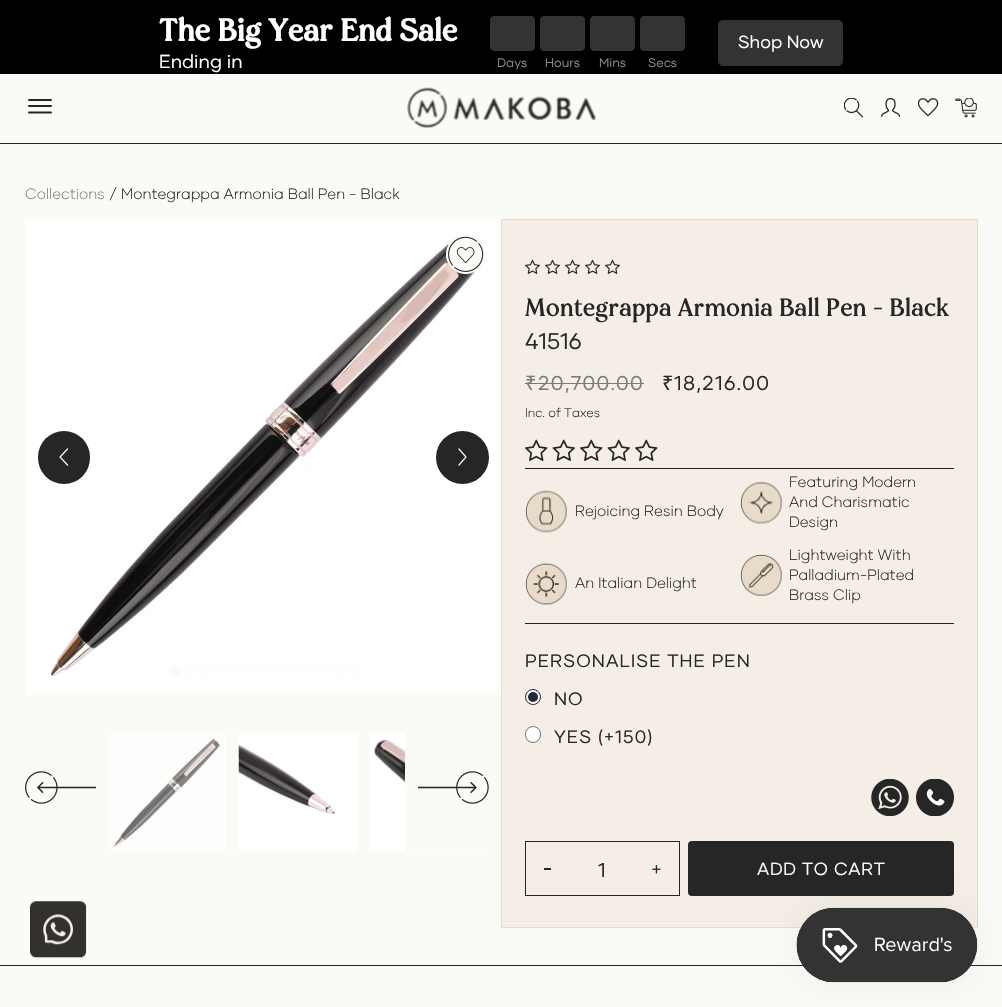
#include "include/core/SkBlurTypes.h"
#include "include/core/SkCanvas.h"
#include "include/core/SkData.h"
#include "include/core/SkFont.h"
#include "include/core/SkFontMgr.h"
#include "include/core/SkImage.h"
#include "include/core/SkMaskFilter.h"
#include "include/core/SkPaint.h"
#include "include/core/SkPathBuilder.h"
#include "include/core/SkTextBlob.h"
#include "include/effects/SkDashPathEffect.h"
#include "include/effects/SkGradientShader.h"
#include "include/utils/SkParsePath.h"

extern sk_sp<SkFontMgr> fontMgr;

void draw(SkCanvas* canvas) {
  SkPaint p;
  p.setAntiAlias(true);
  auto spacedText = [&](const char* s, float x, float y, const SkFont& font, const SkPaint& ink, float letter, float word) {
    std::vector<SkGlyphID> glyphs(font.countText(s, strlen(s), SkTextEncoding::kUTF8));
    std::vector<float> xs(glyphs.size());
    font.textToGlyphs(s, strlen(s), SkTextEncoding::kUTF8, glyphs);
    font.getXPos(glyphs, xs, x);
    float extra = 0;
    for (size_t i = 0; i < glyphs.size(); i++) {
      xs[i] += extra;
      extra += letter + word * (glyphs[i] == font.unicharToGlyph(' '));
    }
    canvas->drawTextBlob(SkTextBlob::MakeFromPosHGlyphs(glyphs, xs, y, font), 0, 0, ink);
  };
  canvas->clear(SkColorSetRGB(250, 250, 247));
  p.setColor(SK_ColorBLACK);
  canvas->drawRect(SkRect::MakeLTRB(0, 0, 1002, 74), p);
  p.setColor(SkColorSetRGB(51, 51, 51));
  canvas->drawRoundRect(SkRect::MakeLTRB(718, 20, 843, 66), 5, 5, p);
  canvas->drawPath(SkPathBuilder().moveTo(494, 16).lineTo(531, 16).cubicTo(533, 16, 535, 18, 535, 20).lineTo(535, 34).lineTo(490, 34).lineTo(490, 20).cubicTo(490, 18, 492, 16, 494, 16).close().detach(), p);
  canvas->drawPath(SkPathBuilder().moveTo(490, 34).lineTo(535, 34).lineTo(535, 47).cubicTo(535, 49, 533, 51, 531, 51).lineTo(494, 51).cubicTo(492, 51, 490, 49, 490, 47).close().detach(), p);
  canvas->drawPath(SkPathBuilder().moveTo(544, 16).lineTo(581, 16).cubicTo(583, 16, 585, 18, 585, 20).lineTo(585, 34).lineTo(540, 34).lineTo(540, 20).cubicTo(540, 18, 542, 16, 544, 16).close().detach(), p);
  canvas->drawPath(SkPathBuilder().moveTo(540, 34).lineTo(585, 34).lineTo(585, 47).cubicTo(585, 49, 583, 51, 581, 51).lineTo(544, 51).cubicTo(542, 51, 540, 49, 540, 47).close().detach(), p);
  canvas->drawPath(SkPathBuilder().moveTo(594, 16).lineTo(631, 16).cubicTo(633, 16, 635, 18, 635, 20).lineTo(635, 34).lineTo(590, 34).lineTo(590, 20).cubicTo(590, 18, 592, 16, 594, 16).close().detach(), p);
  canvas->drawPath(SkPathBuilder().moveTo(590, 34).lineTo(635, 34).lineTo(635, 47).cubicTo(635, 49, 633, 51, 631, 51).lineTo(594, 51).cubicTo(592, 51, 590, 49, 590, 47).close().detach(), p);
  canvas->drawPath(SkPathBuilder().moveTo(644, 16).lineTo(681, 16).cubicTo(683, 16, 685, 18, 685, 20).lineTo(685, 34).lineTo(640, 34).lineTo(640, 20).cubicTo(640, 18, 642, 16, 644, 16).close().detach(), p);
  canvas->drawPath(SkPathBuilder().moveTo(640, 34).lineTo(685, 34).lineTo(685, 47).cubicTo(685, 49, 683, 51, 681, 51).lineTo(644, 51).cubicTo(642, 51, 640, 49, 640, 47).close().detach(), p);
  p.setColor(SkColorSetRGB(39, 38, 38));
  canvas->drawRect(SkRect::MakeLTRB(0, 143, 1002, 144), p);
  p.setStyle(SkPaint::kStroke_Style);
  p.setStrokeWidth(1.9f);
  p.setStrokeCap(SkPaint::kRound_Cap);
  canvas->drawPath(SkPathBuilder().moveTo(29, 100).lineTo(51, 100).moveTo(29, 106).lineTo(51, 106).moveTo(29, 112.5f).lineTo(51, 112.5f).detach(), p);
  canvas->drawImageRect(SkImages::DeferredFromEncodedData(SkData::MakeFromFileName("images/1.png")), SkRect::MakeLTRB(407, 87, 596, 128), SkSamplingOptions());
  canvas->drawImageRect(SkImages::DeferredFromEncodedData(SkData::MakeFromFileName("images/2.png")), SkRect::MakeLTRB(844, 98, 864, 118), SkSamplingOptions());
  canvas->drawImageRect(SkImages::DeferredFromEncodedData(SkData::MakeFromFileName("images/3.png")), SkRect::MakeLTRB(881, 98, 901, 117), SkSamplingOptions());
  canvas->drawImageRect(SkImages::DeferredFromEncodedData(SkData::MakeFromFileName("images/4.png")), SkRect::MakeLTRB(918, 98, 939, 117), SkSamplingOptions());
  canvas->drawImageRect(SkImages::DeferredFromEncodedData(SkData::MakeFromFileName("images/5.png")), SkRect::MakeLTRB(955, 98, 977, 118), SkSamplingOptions());
  p.setStyle(SkPaint::kFill_Style);
  canvas->drawRect(SkRect::MakeLTRB(0, 965, 1002, 966), p);
  canvas->drawImageRect(SkImages::DeferredFromEncodedData(SkData::MakeFromFileName("images/6.png")), SkRect::MakeLTRB(25, 219, 501, 695), SkSamplingOptions());
  canvas->drawRoundRect(SkRect::MakeLTRB(38, 431, 90, 484), 26, 26, p);
  p.setStyle(SkPaint::kStroke_Style);
  p.setStrokeWidth(1.2f);
  p.setColor(SkColorSetRGB(250, 250, 247));
  canvas->drawPath(SkPathBuilder().moveTo(67.5f, 449).lineTo(60, 457).lineTo(67.5f, 465).detach(), p);
  p.setStyle(SkPaint::kFill_Style);
  p.setColor(SkColorSetRGB(39, 38, 38));
  canvas->drawCircle(462.5f, 457.5f, 26.5f, p);
  p.setStyle(SkPaint::kStroke_Style);
  p.setColor(SkColorSetRGB(250, 250, 247));
  canvas->drawPath(SkPathBuilder().moveTo(459, 449).lineTo(466, 457).lineTo(459, 465).detach(), p);
  p.setStyle(SkPaint::kFill_Style);
  canvas->drawCircle(174.5f, 670.5f, 5.5f, p);
  p.setStyle(SkPaint::kStroke_Style);
  p.setStrokeWidth(1);
  p.setStrokeCap(SkPaint::kButt_Cap);
  canvas->drawCircle(190.5f, 670.5f, 5, p);
  canvas->drawRoundRect(SkRect::MakeLTRB(201.5f, 665.5f, 212.5f, 675.5f), 5, 5, p);
  canvas->drawCircle(223.5f, 670.5f, 5, p);
  canvas->drawCircle(239.5f, 670.5f, 5, p);
  canvas->drawCircle(255.5f, 670.5f, 5, p);
  canvas->drawRoundRect(SkRect::MakeLTRB(266.5f, 665.5f, 277.5f, 675.5f), 5, 5, p);
  canvas->drawCircle(288.5f, 670.5f, 5, p);
  canvas->drawCircle(304.5f, 670.5f, 5, p);
  canvas->drawCircle(320.5f, 670.5f, 5, p);
  canvas->drawRoundRect(SkRect::MakeLTRB(331.5f, 665.5f, 342.5f, 675.5f), 5, 5, p);
  canvas->drawCircle(353.5f, 670.5f, 5, p);
  canvas->drawImageRect(SkImages::DeferredFromEncodedData(SkData::MakeFromFileName("images/7.png")), SkRect::MakeLTRB(109, 733, 226, 851), SkSamplingOptions());
  canvas->drawImageRect(SkImages::DeferredFromEncodedData(SkData::MakeFromFileName("images/8.png")), SkRect::MakeLTRB(238, 733, 358, 852), SkSamplingOptions());
  canvas->drawImageRect(SkImages::DeferredFromEncodedData(SkData::MakeFromFileName("images/9.png")), SkRect::MakeLTRB(370, 733, 489, 852), SkSamplingOptions());
  canvas->drawImageRect(SkImages::DeferredFromEncodedData(SkData::MakeFromFileName("images/10.png")), SkRect::MakeLTRB(25, 771, 96, 804), SkSamplingOptions());
  p.setStyle(SkPaint::kFill_Style);
  canvas->drawRect(SkRect::MakeLTRB(405, 733, 489, 851), p);
  canvas->drawImageRect(SkImages::DeferredFromEncodedData(SkData::MakeFromFileName("images/11.png")), SkRect::MakeLTRB(418, 771, 489, 804), SkSamplingOptions());
  canvas->drawImageRect(SkImages::DeferredFromEncodedData(SkData::MakeFromFileName("images/12.png")), SkRect::MakeLTRB(446, 235, 485, 274), SkSamplingOptions());
  p.setColor(SkColorSetRGB(244, 238, 231));
  canvas->drawRect(SkRect::MakeLTRB(501.5f, 219.5f, 977.5f, 927.5f), p);
  p.setStyle(SkPaint::kStroke_Style);
  p.setColor(SkColorSetRGB(232, 220, 201));
  canvas->drawRect(SkRect::MakeLTRB(501.5f, 219.5f, 977.5f, 927.5f), p);
  canvas->drawImageRect(SkImages::DeferredFromEncodedData(SkData::MakeFromFileName("images/13.png")), SkRect::MakeLTRB(525, 259, 540, 274), SkSamplingOptions());
  canvas->drawImageRect(SkImages::DeferredFromEncodedData(SkData::MakeFromFileName("images/13.png")), SkRect::MakeLTRB(545, 259, 560, 274), SkSamplingOptions());
  canvas->drawImageRect(SkImages::DeferredFromEncodedData(SkData::MakeFromFileName("images/13.png")), SkRect::MakeLTRB(565, 259, 580, 274), SkSamplingOptions());
  canvas->drawImageRect(SkImages::DeferredFromEncodedData(SkData::MakeFromFileName("images/13.png")), SkRect::MakeLTRB(585, 259, 600, 274), SkSamplingOptions());
  canvas->drawImageRect(SkImages::DeferredFromEncodedData(SkData::MakeFromFileName("images/13.png")), SkRect::MakeLTRB(605, 259, 620, 274), SkSamplingOptions());
  p.setStyle(SkPaint::kFill_Style);
  p.setColor(SkColorSetRGB(123, 123, 122));
  canvas->drawRect(SkRect::MakeLTRB(525, 383, 644, 384), p);
  canvas->drawImageRect(SkImages::DeferredFromEncodedData(SkData::MakeFromFileName("images/14.png")), SkRect::MakeLTRB(525, 439, 548, 461), SkSamplingOptions());
  canvas->drawImageRect(SkImages::DeferredFromEncodedData(SkData::MakeFromFileName("images/15.png")), SkRect::MakeLTRB(552, 439, 575, 461), SkSamplingOptions());
  canvas->drawImageRect(SkImages::DeferredFromEncodedData(SkData::MakeFromFileName("images/14.png")), SkRect::MakeLTRB(580, 439, 603, 461), SkSamplingOptions());
  canvas->drawImageRect(SkImages::DeferredFromEncodedData(SkData::MakeFromFileName("images/15.png")), SkRect::MakeLTRB(607, 439, 630, 461), SkSamplingOptions());
  canvas->drawImageRect(SkImages::DeferredFromEncodedData(SkData::MakeFromFileName("images/14.png")), SkRect::MakeLTRB(635, 439, 658, 461), SkSamplingOptions());
  p.setColor(SkColorSetRGB(39, 38, 38));
  canvas->drawRect(SkRect::MakeLTRB(525, 468, 954, 469), p);
  canvas->drawImageRect(SkImages::DeferredFromEncodedData(SkData::MakeFromFileName("images/16.png")), SkRect::MakeLTRB(525, 490, 567, 533), SkSamplingOptions());
  canvas->drawImageRect(SkImages::DeferredFromEncodedData(SkData::MakeFromFileName("images/17.png")), SkRect::MakeLTRB(740, 481, 782, 524), SkSamplingOptions());
  canvas->drawImageRect(SkImages::DeferredFromEncodedData(SkData::MakeFromFileName("images/18.png")), SkRect::MakeLTRB(525, 563, 567, 605), SkSamplingOptions());
  canvas->drawImageRect(SkImages::DeferredFromEncodedData(SkData::MakeFromFileName("images/19.png")), SkRect::MakeLTRB(740, 554, 783, 596), SkSamplingOptions());
  canvas->drawRect(SkRect::MakeLTRB(525, 623, 954, 624), p);
  p.setColor(SK_ColorWHITE);
  canvas->drawCircle(533, 697, 7.5f, p);
  p.setStyle(SkPaint::kStroke_Style);
  p.setColor(SkColorSetRGB(33, 43, 54));
  canvas->drawCircle(533, 697, 7.5f, p);
  p.setStyle(SkPaint::kFill_Style);
  canvas->drawCircle(533, 697, 5, p);
  p.setColor(SK_ColorWHITE);
  canvas->drawRoundRect(SkRect::MakeLTRB(525.5f, 726.5f, 540.5f, 742.5f), 7.5f, 7.5f, p);
  p.setStyle(SkPaint::kStroke_Style);
  p.setColor(SkColorSetRGB(118, 118, 118));
  canvas->drawRoundRect(SkRect::MakeLTRB(525.5f, 726.5f, 540.5f, 742.5f), 7.5f, 7.5f, p);
  canvas->drawImageRect(SkImages::DeferredFromEncodedData(SkData::MakeFromFileName("images/20.png")), SkRect::MakeLTRB(871, 779, 909, 816), SkSamplingOptions());
  canvas->drawImageRect(SkImages::DeferredFromEncodedData(SkData::MakeFromFileName("images/21.png")), SkRect::MakeLTRB(916, 779, 954, 816), SkSamplingOptions());
  p.setColor(SkColorSetRGB(39, 38, 38));
  canvas->drawRect(SkRect::MakeLTRB(525.5f, 841.5f, 679.5f, 895.5f), p);
  p.setStyle(SkPaint::kFill_Style);
  canvas->drawRect(SkRect::MakeLTRB(544, 868, 551, 870), p);
  canvas->drawImageRect(SkImages::DeferredFromEncodedData(SkData::MakeFromFileName("images/22.png")), SkRect::MakeLTRB(652, 865, 661, 874), SkSamplingOptions());
  canvas->drawRoundRect(SkRect::MakeLTRB(688, 841, 954, 896), 4, 4, p);
  canvas->drawImageRect(SkImages::DeferredFromEncodedData(SkData::MakeFromFileName("images/23.png")), SkRect::MakeLTRB(30, 901, 87, 958), SkSamplingOptions());
  p.setColor(SkColorSetARGB(13, 0, 0, 0));
  p.setMaskFilter(SkMaskFilter::MakeBlur(kNormal_SkBlurStyle, 15.5f));
  canvas->drawRoundRect(SkRect::MakeLTRB(796, 908, 978, 983), 37.5f, 37.5f, p);
  p.setMaskFilter(nullptr);
  canvas->drawImageRect(SkImages::DeferredFromEncodedData(SkData::MakeFromFileName("images/24.png")), SkRect::MakeLTRB(796, 907, 978, 983), SkSamplingOptions());
  SkFont font1(fontMgr->matchFamilyStyle("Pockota", SkFontStyle::Bold()), 31.25f);
  font1.setSubpixel(true);
  p.setColor(SK_ColorWHITE);
  canvas->drawString("The Big Year End Sale", 159, 41, font1, p);
  SkFont font2(fontMgr->matchFamilyStyle("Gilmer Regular", SkFontStyle::Normal()), 18.75f);
  font2.setSubpixel(true);
  canvas->drawString("Ending in", 159, 68, font2, p);
  SkFont font3(fontMgr->matchFamilyStyle("Gilmer Regular", SkFontStyle::Normal()), 17.5f);
  font3.setSubpixel(true);
  canvas->drawString("Shop Now", 738, 48, font3, p);
  SkFont font4(fontMgr->matchFamilyStyle("Gilmer Regular", SkFontStyle::Normal()), 12.5f);
  font4.setSubpixel(true);
  p.setColor(SkColorSetRGB(133, 134, 139));
  canvas->drawString("Days", 497, 67, font4, p);
  canvas->drawString("Hours", 545, 67, font4, p);
  canvas->drawString("Mins", 599, 67, font4, p);
  canvas->drawString("Secs", 648, 67, font4, p);
  SkFont font5(fontMgr->matchFamilyStyle("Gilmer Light", SkFontStyle(300, SkFontStyle::kNormal_Width, SkFontStyle::kUpright_Slant)), 15);
  font5.setSubpixel(true);
  p.setColor(SkColorSetRGB(123, 123, 122));
  canvas->drawString("Collections", 25, 199, font5, p);
  p.setColor(SkColorSetRGB(39, 38, 38));
  canvas->drawString("/ Montegrappa Armonia Ball Pen - Black", 109, 199, font5, p);
  SkFont font6(fontMgr->matchFamilyStyle("Pockota", SkFontStyle::Normal()), 25);
  font6.setSubpixel(true);
  canvas->drawString("Montegrappa Armonia Ball Pen - Black", 525, 316, font6, p);
  SkFont font7(fontMgr->matchFamilyStyle("Gilmer Regular", SkFontStyle::Normal()), 22.5f);
  font7.setSubpixel(true);
  canvas->drawString("41516", 525, 349, font7, p);
  SkFont font8(fontMgr->matchFamilyStyle("Noto Sans", SkFontStyle::Normal()), 20);
  font8.setSubpixel(true);
  p.setColor(SkColorSetRGB(123, 123, 122));
  spacedText("₹", 525, 390, font8, p, 1.25f, 0);
  SkFont font9(fontMgr->matchFamilyStyle("Gilmer Regular", SkFontStyle::Normal()), 20);
  font9.setSubpixel(true);
  spacedText("20,700.00", 538, 390, font9, p, 1.25f, 0);
  p.setColor(SkColorSetRGB(39, 38, 38));
  spacedText("₹", 662, 390, font8, p, 1.25f, 0);
  spacedText("18,216.00", 674, 390, font9, p, 1.25f, 0);
  SkFont font10(fontMgr->matchFamilyStyle("Gilmer Light", SkFontStyle(300, SkFontStyle::kNormal_Width, SkFontStyle::kUpright_Slant)), 12.5f);
  font10.setSubpixel(true);
  canvas->drawString("Inc. of Taxes", 525, 417, font10, p);
  canvas->drawString("Rejoicing Resin Body", 575, 516, font5, p);
  canvas->drawString("Featuring Modern", 789, 487, font5, p);
  canvas->drawString("And Charismatic", 789, 507, font5, p);
  canvas->drawString("Design", 789, 527, font5, p);
  canvas->drawString("An Italian Delight", 575, 588, font5, p);
  canvas->drawString("Lightweight With", 789, 560, font5, p);
  canvas->drawString("Palladium-Plated", 789, 580, font5, p);
  canvas->drawString("Brass Clip", 789, 600, font5, p);
  SkFont font11(fontMgr->matchFamilyStyle("Gilmer Regular", SkFontStyle::Normal()), 18);
  font11.setSubpixel(true);
  spacedText("PERSONALISE THE PEN", 525, 667, font11, p, 1.1f, 0);
  spacedText("NO", 554, 705, font11, p, 1.1f, 0);
  spacedText("YES (+150)", 554, 743, font11, p, 1.1f, 0);
  spacedText("1", 598, 877, font9, p, 1.25f, 0);
  p.setColor(SkColorSetRGB(250, 250, 247));
  spacedText("ADD TO CART", 757, 875, font3, p, 0.75f, 0);
}
